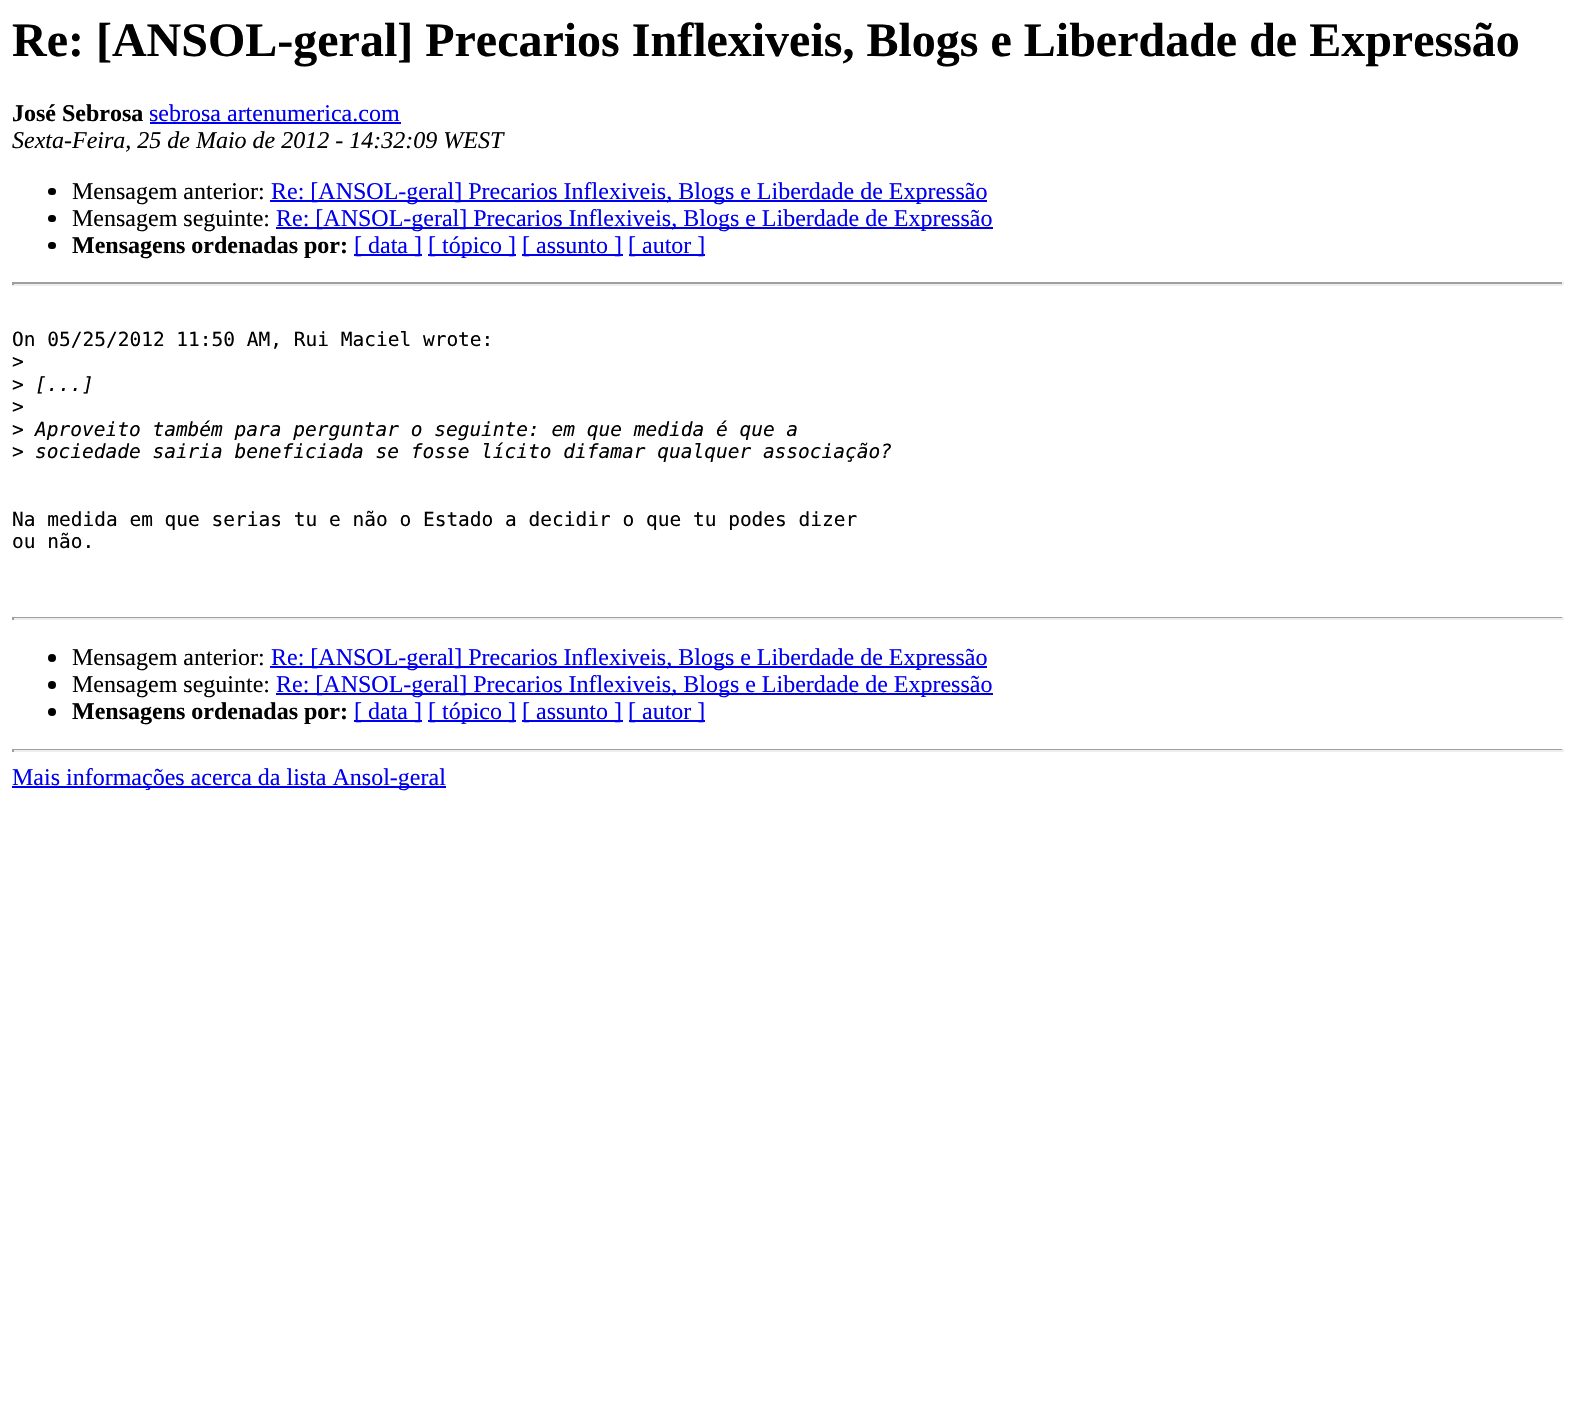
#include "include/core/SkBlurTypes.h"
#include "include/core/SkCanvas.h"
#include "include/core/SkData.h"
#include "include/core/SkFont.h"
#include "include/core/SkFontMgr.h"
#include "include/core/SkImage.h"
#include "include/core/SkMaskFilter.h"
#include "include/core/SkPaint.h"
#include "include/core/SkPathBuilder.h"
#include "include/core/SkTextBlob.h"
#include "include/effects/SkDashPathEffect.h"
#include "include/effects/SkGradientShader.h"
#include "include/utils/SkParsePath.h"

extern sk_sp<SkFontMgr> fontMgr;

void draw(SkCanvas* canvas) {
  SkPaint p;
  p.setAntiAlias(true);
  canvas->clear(SK_ColorWHITE);
  p.setColor(SkColorSetRGB(0, 0, 238));
  canvas->drawRect(SkRect::MakeLTRB(150, 122, 401, 124), p);
  p.setColor(SK_ColorBLACK);
  canvas->drawRoundRect(SkRect::MakeLTRB(48, 188, 56, 195), 3.5f, 3.5f, p);
  p.setColor(SkColorSetRGB(0, 0, 238));
  canvas->drawRect(SkRect::MakeLTRB(270, 200, 987, 202), p);
  p.setColor(SK_ColorBLACK);
  canvas->drawRoundRect(SkRect::MakeLTRB(48, 215, 56, 222), 3.5f, 3.5f, p);
  p.setColor(SkColorSetRGB(0, 0, 238));
  canvas->drawRect(SkRect::MakeLTRB(276, 227, 993, 229), p);
  p.setColor(SK_ColorBLACK);
  canvas->drawRoundRect(SkRect::MakeLTRB(48, 242, 56, 249), 3.5f, 3.5f, p);
  p.setColor(SkColorSetRGB(0, 0, 238));
  canvas->drawRect(SkRect::MakeLTRB(354, 254, 422, 256), p);
  canvas->drawRect(SkRect::MakeLTRB(428, 254, 516, 256), p);
  canvas->drawRect(SkRect::MakeLTRB(522, 254, 623, 256), p);
  canvas->drawRect(SkRect::MakeLTRB(629, 254, 705, 256), p);
  p.setColor(SkColorSetRGB(159, 159, 159));
  canvas->drawRect(SkRect::MakeLTRB(12, 282, 1563, 284), p);
  p.setColor(SkColorSetRGB(238, 238, 238));
  canvas->drawRect(SkRect::MakeLTRB(1562, 282, 1564, 285), p);
  canvas->drawRect(SkRect::MakeLTRB(12, 284, 1563, 286), p);
  p.setColor(SkColorSetRGB(159, 159, 159));
  canvas->drawRect(SkRect::MakeLTRB(12, 282, 14, 285), p);
  canvas->drawRect(SkRect::MakeLTRB(12, 617, 1563, 618), p);
  p.setColor(SkColorSetRGB(238, 238, 238));
  canvas->drawRect(SkRect::MakeLTRB(1562, 617, 1564, 620), p);
  canvas->drawRect(SkRect::MakeLTRB(12, 618, 1563, 620), p);
  p.setColor(SkColorSetRGB(159, 159, 159));
  canvas->drawRect(SkRect::MakeLTRB(12, 617, 14, 620), p);
  p.setColor(SK_ColorBLACK);
  canvas->drawCircle(52, 658, 4, p);
  p.setColor(SkColorSetRGB(0, 0, 238));
  canvas->drawRect(SkRect::MakeLTRB(270, 666, 987, 668), p);
  p.setColor(SK_ColorBLACK);
  canvas->drawCircle(52, 685, 4, p);
  p.setColor(SkColorSetRGB(0, 0, 238));
  canvas->drawRect(SkRect::MakeLTRB(276, 693, 993, 695), p);
  p.setColor(SK_ColorBLACK);
  canvas->drawCircle(52, 712, 4, p);
  p.setColor(SkColorSetRGB(0, 0, 238));
  canvas->drawRect(SkRect::MakeLTRB(354, 720, 422, 722), p);
  canvas->drawRect(SkRect::MakeLTRB(428, 720, 516, 722), p);
  canvas->drawRect(SkRect::MakeLTRB(522, 720, 623, 722), p);
  canvas->drawRect(SkRect::MakeLTRB(629, 720, 705, 722), p);
  p.setColor(SkColorSetRGB(159, 159, 159));
  canvas->drawRect(SkRect::MakeLTRB(12, 749, 1563, 750), p);
  p.setColor(SkColorSetRGB(238, 238, 238));
  canvas->drawRect(SkRect::MakeLTRB(1562, 749, 1564, 752), p);
  canvas->drawRect(SkRect::MakeLTRB(12, 750, 1563, 752), p);
  p.setColor(SkColorSetRGB(159, 159, 159));
  canvas->drawRect(SkRect::MakeLTRB(12, 749, 14, 752), p);
  p.setColor(SkColorSetRGB(0, 0, 238));
  canvas->drawRect(SkRect::MakeLTRB(12, 786, 446, 788), p);
  SkFont font1(fontMgr->matchFamilyStyle("Liberation Serif", SkFontStyle::Bold()), 48);
  font1.setSubpixel(true);
  p.setColor(SK_ColorBLACK);
  canvas->drawString("Re: [ANSOL-geral] Precarios Inflexiveis, Blogs e Liberdade de Expressão", 12, 56, font1, p);
  SkFont font2(fontMgr->matchFamilyStyle("Liberation Serif", SkFontStyle::Bold()), 24);
  font2.setSubpixel(true);
  canvas->drawString("José Sebrosa", 12, 121, font2, p);
  SkFont font3(fontMgr->matchFamilyStyle("Liberation Serif", SkFontStyle::Normal()), 24);
  font3.setSubpixel(true);
  p.setColor(SkColorSetRGB(0, 0, 238));
  canvas->drawString("sebrosa artenumerica.com", 149, 121, font3, p);
  SkFont font4(fontMgr->matchFamilyStyle("Liberation Serif", SkFontStyle::Italic()), 24);
  font4.setSubpixel(true);
  p.setColor(SK_ColorBLACK);
  canvas->drawString("Sexta-Feira, 25 de Maio de 2012 - 14:32:09 WEST", 12, 148, font4, p);
  canvas->drawString("Mensagem anterior:", 72, 199, font3, p);
  p.setColor(SkColorSetRGB(0, 0, 238));
  canvas->drawString("Re: [ANSOL-geral] Precarios Inflexiveis, Blogs e Liberdade de Expressão", 271, 199, font3, p);
  p.setColor(SK_ColorBLACK);
  canvas->drawString("Mensagem seguinte:", 72, 226, font3, p);
  p.setColor(SkColorSetRGB(0, 0, 238));
  canvas->drawString("Re: [ANSOL-geral] Precarios Inflexiveis, Blogs e Liberdade de Expressão", 276, 226, font3, p);
  p.setColor(SK_ColorBLACK);
  canvas->drawString("Mensagens ordenadas por:", 72, 253, font2, p);
  p.setColor(SkColorSetRGB(0, 0, 238));
  canvas->drawString("[ data ]", 354, 253, font3, p);
  canvas->drawString("[ tópico ]", 428, 253, font3, p);
  canvas->drawString("[ assunto ]", 522, 253, font3, p);
  canvas->drawString("[ autor ]", 628, 253, font3, p);
  SkFont font5(fontMgr->matchFamilyStyle("DejaVu Sans Mono", SkFontStyle::Normal()), 19.5f);
  font5.setSubpixel(true);
  p.setColor(SK_ColorBLACK);
  canvas->drawString("On 05/25/2012 11:50 AM, Rui Maciel wrote:", 12, 346, font5, p);
  canvas->drawString(">", 12, 368, font5, p);
  canvas->drawString(">", 12, 391, font5, p);
  SkFont font6(fontMgr->matchFamilyStyle("DejaVu Sans Mono", SkFontStyle::Italic()), 19.5f);
  font6.setSubpixel(true);
  canvas->drawString("[...]", 35, 391, font6, p);
  canvas->drawString(">", 12, 413, font5, p);
  canvas->drawString(">", 12, 436, font5, p);
  canvas->drawString("Aproveito também para perguntar o seguinte: em que medida é que a", 35, 436, font6, p);
  canvas->drawString(">", 12, 458, font5, p);
  canvas->drawString("sociedade sairia beneficiada se fosse lícito difamar qualquer associação?", 35, 458, font6, p);
  canvas->drawString("Na medida em que serias tu e não o Estado a decidir o que tu podes dizer", 12, 526, font5, p);
  canvas->drawString("ou não.", 12, 548, font5, p);
  canvas->drawString("Mensagem anterior:", 72, 665, font3, p);
  p.setColor(SkColorSetRGB(0, 0, 238));
  canvas->drawString("Re: [ANSOL-geral] Precarios Inflexiveis, Blogs e Liberdade de Expressão", 271, 665, font3, p);
  p.setColor(SK_ColorBLACK);
  canvas->drawString("Mensagem seguinte:", 72, 692, font3, p);
  p.setColor(SkColorSetRGB(0, 0, 238));
  canvas->drawString("Re: [ANSOL-geral] Precarios Inflexiveis, Blogs e Liberdade de Expressão", 276, 692, font3, p);
  p.setColor(SK_ColorBLACK);
  canvas->drawString("Mensagens ordenadas por:", 72, 719, font2, p);
  p.setColor(SkColorSetRGB(0, 0, 238));
  canvas->drawString("[ data ]", 354, 719, font3, p);
  canvas->drawString("[ tópico ]", 428, 719, font3, p);
  canvas->drawString("[ assunto ]", 522, 719, font3, p);
  canvas->drawString("[ autor ]", 628, 719, font3, p);
  canvas->drawString("Mais informações acerca da lista Ansol-geral", 12, 785, font3, p);
}
